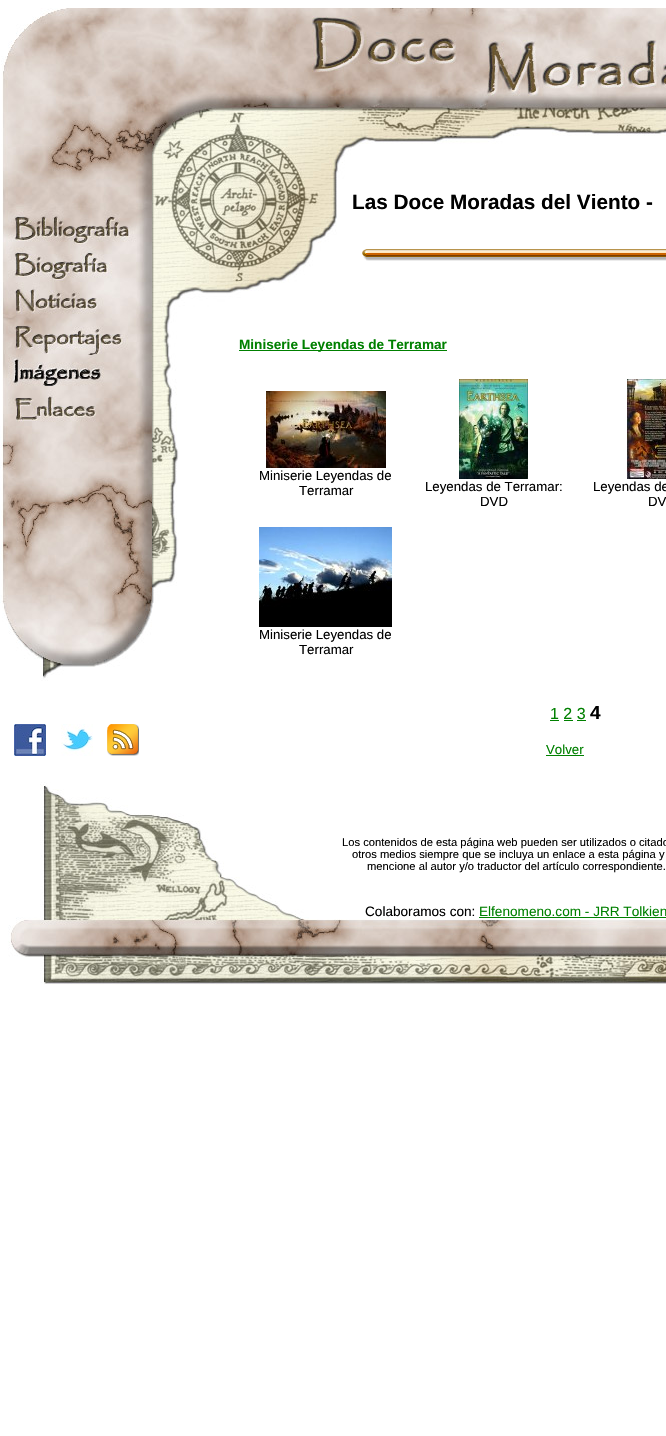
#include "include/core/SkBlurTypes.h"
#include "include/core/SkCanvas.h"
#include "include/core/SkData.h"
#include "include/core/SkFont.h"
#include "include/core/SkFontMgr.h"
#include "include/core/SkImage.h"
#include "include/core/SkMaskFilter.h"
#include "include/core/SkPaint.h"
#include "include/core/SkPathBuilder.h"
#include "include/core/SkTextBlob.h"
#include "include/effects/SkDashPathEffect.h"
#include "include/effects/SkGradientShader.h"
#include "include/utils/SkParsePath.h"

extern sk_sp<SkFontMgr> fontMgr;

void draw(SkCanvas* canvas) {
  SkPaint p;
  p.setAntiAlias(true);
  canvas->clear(SK_ColorWHITE);
  canvas->drawImageRect(SkImages::DeferredFromEncodedData(SkData::MakeFromFileName("images/1.png")), SkRect::MakeLTRB(1, 8, 666, 147), SkSamplingOptions());
  canvas->drawImageRect(SkImages::DeferredFromEncodedData(SkData::MakeFromFileName("images/2.png")), SkRect::MakeLTRB(2, 147, 153, 210), SkSamplingOptions());
  canvas->drawImageRect(SkImages::DeferredFromEncodedData(SkData::MakeFromFileName("images/3.png")), SkRect::MakeLTRB(2, 210, 153, 246), SkSamplingOptions());
  canvas->drawImageRect(SkImages::DeferredFromEncodedData(SkData::MakeFromFileName("images/4.png")), SkRect::MakeLTRB(2, 246, 153, 282), SkSamplingOptions());
  canvas->drawImageRect(SkImages::DeferredFromEncodedData(SkData::MakeFromFileName("images/5.png")), SkRect::MakeLTRB(0, 282, 153, 318), SkSamplingOptions());
  canvas->drawImageRect(SkImages::DeferredFromEncodedData(SkData::MakeFromFileName("images/6.png")), SkRect::MakeLTRB(2, 318, 153, 354), SkSamplingOptions());
  canvas->drawImageRect(SkImages::DeferredFromEncodedData(SkData::MakeFromFileName("images/7.png")), SkRect::MakeLTRB(2, 354, 153, 390), SkSamplingOptions());
  canvas->drawImageRect(SkImages::DeferredFromEncodedData(SkData::MakeFromFileName("images/8.png")), SkRect::MakeLTRB(2, 390, 153, 426), SkSamplingOptions());
  canvas->drawImageRect(SkImages::DeferredFromEncodedData(SkData::MakeFromFileName("images/9.png")), SkRect::MakeLTRB(0, 426, 153, 462), SkSamplingOptions());
  canvas->drawImageRect(SkImages::DeferredFromEncodedData(SkData::MakeFromFileName("images/10.png")), SkRect::MakeLTRB(0, 462, 153, 547), SkSamplingOptions());
  canvas->drawImageRect(SkImages::DeferredFromEncodedData(SkData::MakeFromFileName("images/11.png")), SkRect::MakeLTRB(0, 547, 153, 603), SkSamplingOptions());
  canvas->drawImageRect(SkImages::DeferredFromEncodedData(SkData::MakeFromFileName("images/12.png")), SkRect::MakeLTRB(2, 603, 153, 681), SkSamplingOptions());
  canvas->drawImageRect(SkImages::DeferredFromEncodedData(SkData::MakeFromFileName("images/13.png")), SkRect::MakeLTRB(14, 724, 46, 756), SkSamplingOptions());
  canvas->drawImageRect(SkImages::DeferredFromEncodedData(SkData::MakeFromFileName("images/14.png")), SkRect::MakeLTRB(61, 724, 93, 756), SkSamplingOptions());
  canvas->drawImageRect(SkImages::DeferredFromEncodedData(SkData::MakeFromFileName("images/15.png")), SkRect::MakeLTRB(107, 724, 139, 756), SkSamplingOptions());
  canvas->drawImageRect(SkImages::DeferredFromEncodedData(SkData::MakeFromFileName("images/16.png")), SkRect::MakeLTRB(153, 147, 352, 307), SkSamplingOptions());
  canvas->drawImageRect(SkImages::DeferredFromEncodedData(SkData::MakeFromFileName("images/17.png")), SkRect::MakeLTRB(362, 249, 666, 261), SkSamplingOptions());
  canvas->drawImageRect(SkImages::DeferredFromEncodedData(SkData::MakeFromFileName("images/18.png")), SkRect::MakeLTRB(153, 307, 179, 603), SkSamplingOptions());
  p.setColor(SkColorSetRGB(0, 128, 0));
  canvas->drawRect(SkRect::MakeLTRB(239, 350, 447, 351), p);
  canvas->drawImageRect(SkImages::DeferredFromEncodedData(SkData::MakeFromFileName("images/19.png")), SkRect::MakeLTRB(266, 391, 386, 468), SkSamplingOptions());
  canvas->drawImageRect(SkImages::DeferredFromEncodedData(SkData::MakeFromFileName("images/20.png")), SkRect::MakeLTRB(459, 379, 528, 479), SkSamplingOptions());
  canvas->drawImageRect(SkImages::DeferredFromEncodedData(SkData::MakeFromFileName("images/21.png")), SkRect::MakeLTRB(627, 379, 666, 479), SkSamplingOptions());
  canvas->drawImageRect(SkImages::DeferredFromEncodedData(SkData::MakeFromFileName("images/22.png")), SkRect::MakeLTRB(259, 527, 392, 627), SkSamplingOptions());
  canvas->drawRect(SkRect::MakeLTRB(550, 720, 559, 721), p);
  canvas->drawRect(SkRect::MakeLTRB(564, 720, 573, 721), p);
  canvas->drawRect(SkRect::MakeLTRB(577, 720, 586, 721), p);
  canvas->drawRect(SkRect::MakeLTRB(546, 755, 584, 756), p);
  canvas->drawImageRect(SkImages::DeferredFromEncodedData(SkData::MakeFromFileName("images/23.png")), SkRect::MakeLTRB(8, 782, 309, 985), SkSamplingOptions());
  canvas->drawRect(SkRect::MakeLTRB(479, 917, 666, 918), p);
  canvas->drawImageRect(SkImages::DeferredFromEncodedData(SkData::MakeFromFileName("images/24.png")), SkRect::MakeLTRB(309, 919, 666, 984), SkSamplingOptions());
  SkFont font1(fontMgr->matchFamilyStyle("Liberation Sans", SkFontStyle::Bold()), 20.75f);
  font1.setSubpixel(true);
  p.setColor(SK_ColorBLACK);
  canvas->drawString("Las Doce Moradas del Viento -", 352, 209, font1, p);
  SkFont font2(fontMgr->matchFamilyStyle("Liberation Sans", SkFontStyle::Bold()), 13.6f);
  font2.setSubpixel(true);
  p.setColor(SkColorSetRGB(0, 128, 0));
  canvas->drawString("Miniserie Leyendas de Terramar", 239, 349, font2, p);
  SkFont font3(fontMgr->matchFamilyStyle("Liberation Sans", SkFontStyle::Normal()), 13.25f);
  font3.setSubpixel(true);
  p.setColor(SK_ColorBLACK);
  canvas->drawString("Miniserie Leyendas de", 259, 480, font3, p);
  canvas->drawString("Terramar", 299, 495, font3, p);
  canvas->drawString("Leyendas de Terramar:", 425, 491, font3, p);
  canvas->drawString("DVD", 480, 506, font3, p);
  canvas->drawString("Leyendas de", 593, 491, font3, p);
  canvas->drawString("DV", 648, 506, font3, p);
  canvas->drawString("Miniserie Leyendas de", 259, 639, font3, p);
  canvas->drawString("Terramar", 299, 654, font3, p);
  SkFont font4(fontMgr->matchFamilyStyle("Liberation Sans", SkFontStyle::Normal()), 16);
  font4.setSubpixel(true);
  p.setColor(SkColorSetRGB(0, 128, 0));
  canvas->drawString("1 2 3", 550, 719, font4, p);
  SkFont font5(fontMgr->matchFamilyStyle("Liberation Sans", SkFontStyle::Bold()), 19);
  font5.setSubpixel(true);
  p.setColor(SK_ColorBLACK);
  canvas->drawString("4", 590, 719, font5, p);
  p.setColor(SkColorSetRGB(0, 128, 0));
  canvas->drawString("Volver", 546, 754, font3, p);
  SkFont font6(fontMgr->matchFamilyStyle("Liberation Sans", SkFontStyle::Normal()), 11.2f);
  font6.setSubpixel(true);
  p.setColor(SK_ColorBLACK);
  canvas->drawString("Los contenidos de esta página web pueden ser utilizados o citado", 342, 846, font6, p);
  canvas->drawString("otros medios siempre que se incluya un enlace a esta página y", 352, 858, font6, p);
  canvas->drawString("mencione al autor y/o traductor del artículo correspondiente.", 367, 870, font6, p);
  SkFont font7(fontMgr->matchFamilyStyle("Liberation Sans", SkFontStyle::Normal()), 13.6f);
  font7.setSubpixel(true);
  canvas->drawString("Colaboramos con:", 365, 916, font7, p);
  p.setColor(SkColorSetRGB(0, 128, 0));
  canvas->drawString("Elfenomeno.com - JRR Tolkien", 479, 916, font7, p);
}
